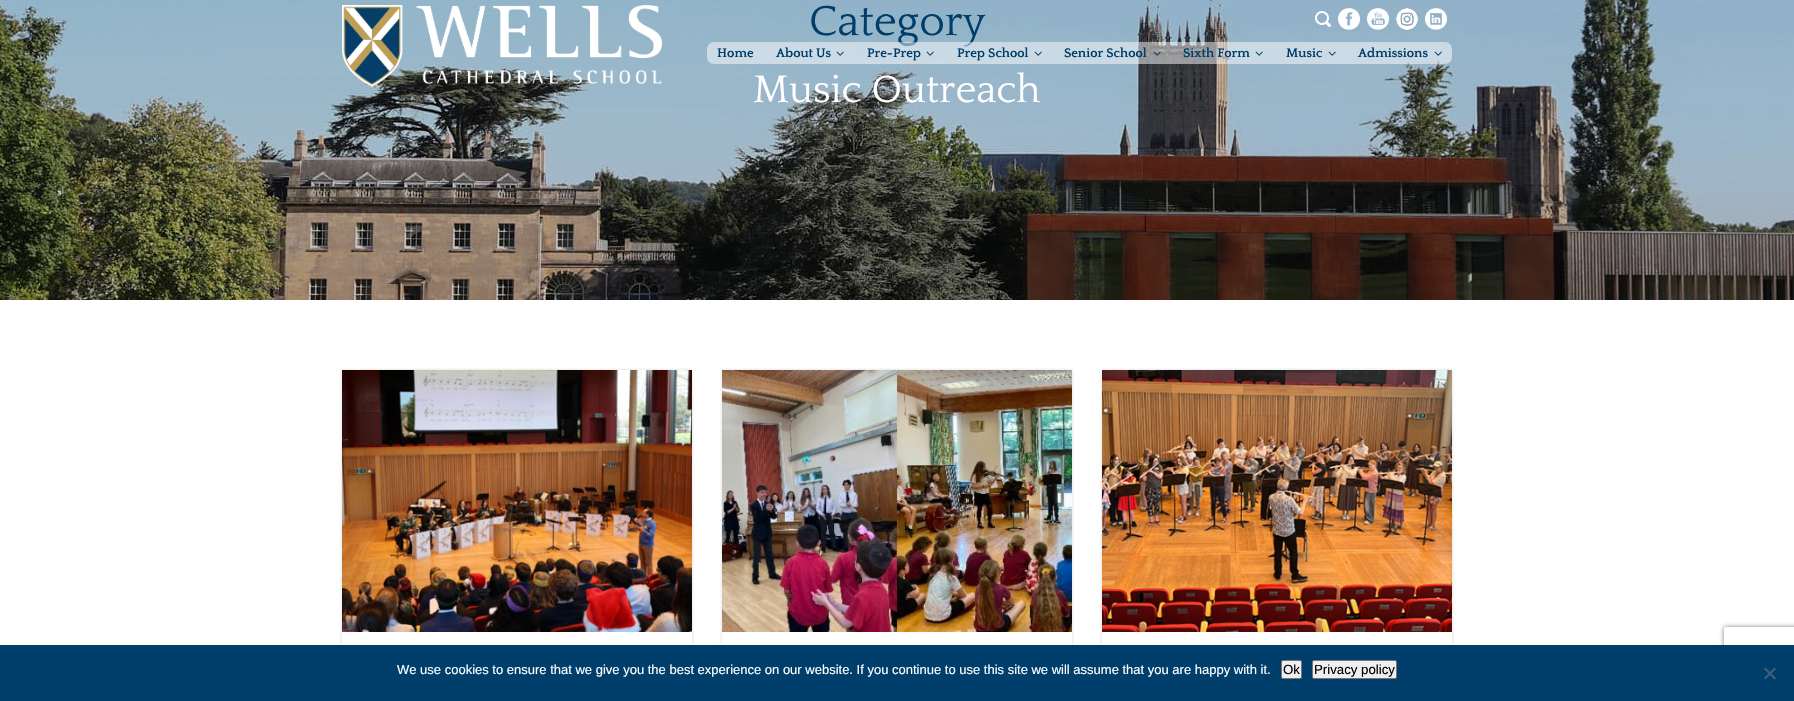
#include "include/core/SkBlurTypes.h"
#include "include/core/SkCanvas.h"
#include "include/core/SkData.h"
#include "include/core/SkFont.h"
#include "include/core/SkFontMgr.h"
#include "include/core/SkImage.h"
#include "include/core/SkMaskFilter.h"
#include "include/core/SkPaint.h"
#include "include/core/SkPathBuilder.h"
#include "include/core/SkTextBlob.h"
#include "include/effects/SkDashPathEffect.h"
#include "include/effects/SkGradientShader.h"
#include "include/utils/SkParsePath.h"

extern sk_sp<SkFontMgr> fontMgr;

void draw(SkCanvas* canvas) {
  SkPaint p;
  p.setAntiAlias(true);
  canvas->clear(SK_ColorWHITE);
  canvas->drawImageRect(SkImages::DeferredFromEncodedData(SkData::MakeFromFileName("images/1.png")), SkRect::MakeLTRB(0, 0, 1794, 300), SkSamplingOptions());
  canvas->drawImageRect(SkImages::DeferredFromEncodedData(SkData::MakeFromFileName("images/2.png")), SkRect::MakeLTRB(342, 5, 662, 87), SkSamplingOptions());
  canvas->drawImageRect(SkImages::DeferredFromEncodedData(SkData::MakeFromFileName("images/3.png")), SkRect::MakeLTRB(1315, 11, 1331, 27), SkSamplingOptions());
  canvas->drawImageRect(SkImages::DeferredFromEncodedData(SkData::MakeFromFileName("images/4.png")), SkRect::MakeLTRB(1338, 8, 1360, 30), SkSamplingOptions());
  canvas->drawImageRect(SkImages::DeferredFromEncodedData(SkData::MakeFromFileName("images/5.png")), SkRect::MakeLTRB(1367, 8, 1389, 30), SkSamplingOptions());
  canvas->drawImageRect(SkImages::DeferredFromEncodedData(SkData::MakeFromFileName("images/6.png")), SkRect::MakeLTRB(1396, 8, 1418, 30), SkSamplingOptions());
  canvas->drawImageRect(SkImages::DeferredFromEncodedData(SkData::MakeFromFileName("images/7.png")), SkRect::MakeLTRB(1425, 8, 1447, 30), SkSamplingOptions());
  canvas->save();
  canvas->clipPath(SkPathBuilder(SkPathFillType::kEvenOdd).moveTo(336, 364).lineTo(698, 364).lineTo(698, 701).lineTo(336, 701).close().moveTo(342, 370).lineTo(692, 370).lineTo(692, 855).lineTo(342, 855).close().detach(), true);
  p.setColor(SkColorSetARGB(38, 0, 0, 0));
  p.setMaskFilter(SkMaskFilter::MakeBlur(kNormal_SkBlurStyle, 1.5f));
  canvas->drawRect(SkRect::MakeLTRB(342, 370, 692, 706), p);
  p.setMaskFilter(nullptr);
  canvas->restore();
  canvas->drawImageRect(SkImages::DeferredFromEncodedData(SkData::MakeFromFileName("images/13.png")), SkRect::MakeLTRB(342, 370, 692, 632), SkSamplingOptions());
  canvas->save();
  canvas->clipPath(SkPathBuilder(SkPathFillType::kEvenOdd).moveTo(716, 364).lineTo(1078, 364).lineTo(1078, 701).lineTo(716, 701).close().moveTo(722, 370).lineTo(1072, 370).lineTo(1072, 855).lineTo(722, 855).close().detach(), true);
  p.setMaskFilter(SkMaskFilter::MakeBlur(kNormal_SkBlurStyle, 1.5f));
  canvas->drawRect(SkRect::MakeLTRB(722, 370, 1072, 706), p);
  p.setMaskFilter(nullptr);
  canvas->restore();
  canvas->drawImageRect(SkImages::DeferredFromEncodedData(SkData::MakeFromFileName("images/14.png")), SkRect::MakeLTRB(722, 370, 1072, 632), SkSamplingOptions());
  canvas->save();
  canvas->clipPath(SkPathBuilder(SkPathFillType::kEvenOdd).moveTo(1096, 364).lineTo(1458, 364).lineTo(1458, 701).lineTo(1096, 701).close().moveTo(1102, 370).lineTo(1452, 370).lineTo(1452, 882).lineTo(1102, 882).close().detach(), true);
  p.setMaskFilter(SkMaskFilter::MakeBlur(kNormal_SkBlurStyle, 1.5f));
  canvas->drawRect(SkRect::MakeLTRB(1102, 370, 1452, 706), p);
  p.setMaskFilter(nullptr);
  canvas->restore();
  canvas->drawImageRect(SkImages::DeferredFromEncodedData(SkData::MakeFromFileName("images/15.png")), SkRect::MakeLTRB(1102, 370, 1452, 632), SkSamplingOptions());
  canvas->save();
  canvas->clipPath(SkPathBuilder(SkPathFillType::kEvenOdd).moveTo(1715, 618).lineTo(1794, 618).lineTo(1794, 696).lineTo(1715, 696).close().moveTo(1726, 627).lineTo(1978, 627).cubicTo(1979, 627, 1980, 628, 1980, 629).lineTo(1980, 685).cubicTo(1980, 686, 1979, 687, 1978, 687).lineTo(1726, 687).cubicTo(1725, 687, 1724, 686, 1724, 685).lineTo(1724, 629).cubicTo(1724, 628, 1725, 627, 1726, 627).close().detach(), true);
  p.setColor(SkColorSetRGB(128, 128, 128));
  p.setMaskFilter(SkMaskFilter::MakeBlur(kNormal_SkBlurStyle, 2.5f));
  canvas->drawRoundRect(SkRect::MakeLTRB(1724, 627, 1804, 687), 2, 2, p);
  p.setMaskFilter(nullptr);
  canvas->restore();
  p.setColor(SkColorSetRGB(0, 62, 107));
  canvas->drawRect(SkRect::MakeLTRB(0, 645, 1794, 701), p);
  p.setColor(SkColorSetRGB(239, 239, 239));
  canvas->drawRoundRect(SkRect::MakeLTRB(1281.5f, 660.5f, 1301.5f, 678.5f), 1.5f, 1.5f, p);
  p.setStyle(SkPaint::kStroke_Style);
  p.setStrokeWidth(1);
  p.setColor(SkColorSetRGB(118, 118, 118));
  canvas->drawRoundRect(SkRect::MakeLTRB(1281.5f, 660.5f, 1301.5f, 678.5f), 1.5f, 1.5f, p);
  p.setStyle(SkPaint::kFill_Style);
  p.setColor(SkColorSetRGB(239, 239, 239));
  canvas->drawRoundRect(SkRect::MakeLTRB(1312.5f, 660.5f, 1396.5f, 678.5f), 1.5f, 1.5f, p);
  p.setStyle(SkPaint::kStroke_Style);
  p.setColor(SkColorSetRGB(118, 118, 118));
  canvas->drawRoundRect(SkRect::MakeLTRB(1312.5f, 660.5f, 1396.5f, 678.5f), 1.5f, 1.5f, p);
  p.setStyle(SkPaint::kFill_Style);
  p.setColor(SkColorSetRGB(64, 95, 118));
  canvas->drawPath(SkPathBuilder().moveTo(1774.5f, 667.5f).lineTo(1776, 669).lineTo(1765.5f, 679.5f).lineTo(1764, 678).close().detach(), p);
  canvas->drawPath(SkPathBuilder().moveTo(1764, 669).lineTo(1765.5f, 667.5f).lineTo(1776, 678).lineTo(1774.5f, 679.5f).close().detach(), p);
  SkFont font1(fontMgr->matchFamilyStyle("Quattrocento", SkFontStyle::Normal()), 44);
  font1.setSubpixel(true);
  p.setColor(SkColorSetRGB(0, 61, 107));
  canvas->drawString("Category", 809, 35, font1, p);
  SkFont font2(fontMgr->matchFamilyStyle("Quattrocento", SkFontStyle::Normal()), 40);
  font2.setSubpixel(true);
  p.setColor(SK_ColorWHITE);
  canvas->drawString("Music Outreach", 753, 102, font2, p);
  p.setColor(SkColorSetARGB(128, 255, 255, 255));
  canvas->drawRoundRect(SkRect::MakeLTRB(707, 42, 1452, 64), 7, 7, p);
  SkFont font3(fontMgr->matchFamilyStyle("Quattrocento", SkFontStyle::Bold()), 13);
  font3.setSubpixel(true);
  p.setColor(SkColorSetRGB(0, 61, 107));
  canvas->drawString("Home", 717, 57, font3, p);
  canvas->drawString("About Us", 776, 57, font3, p);
  canvas->drawImageRect(SkImages::DeferredFromEncodedData(SkData::MakeFromFileName("images/8.png")), SkRect::MakeLTRB(836, 51, 844, 56), SkSamplingOptions());
  canvas->drawString("Pre-Prep", 867, 57, font3, p);
  canvas->drawImageRect(SkImages::DeferredFromEncodedData(SkData::MakeFromFileName("images/9.png")), SkRect::MakeLTRB(926, 51, 934, 56), SkSamplingOptions());
  canvas->drawString("Prep School", 957, 57, font3, p);
  canvas->drawImageRect(SkImages::DeferredFromEncodedData(SkData::MakeFromFileName("images/9.png")), SkRect::MakeLTRB(1034, 51, 1042, 56), SkSamplingOptions());
  canvas->drawString("Senior School", 1064, 57, font3, p);
  canvas->drawImageRect(SkImages::DeferredFromEncodedData(SkData::MakeFromFileName("images/10.png")), SkRect::MakeLTRB(1153, 51, 1161, 56), SkSamplingOptions());
  canvas->drawString("Sixth Form", 1183, 57, font3, p);
  canvas->drawImageRect(SkImages::DeferredFromEncodedData(SkData::MakeFromFileName("images/9.png")), SkRect::MakeLTRB(1255, 51, 1263, 56), SkSamplingOptions());
  canvas->drawString("Music", 1286, 57, font3, p);
  canvas->drawImageRect(SkImages::DeferredFromEncodedData(SkData::MakeFromFileName("images/11.png")), SkRect::MakeLTRB(1328, 51, 1336, 56), SkSamplingOptions());
  canvas->drawString("Admissions", 1358, 57, font3, p);
  canvas->drawImageRect(SkImages::DeferredFromEncodedData(SkData::MakeFromFileName("images/12.png")), SkRect::MakeLTRB(1434, 51, 1442, 56), SkSamplingOptions());
  SkFont font4(fontMgr->matchFamilyStyle("Liberation Sans", SkFontStyle::Normal()), 13);
  font4.setSubpixel(true);
  p.setColor(SK_ColorWHITE);
  canvas->drawString("We use cookies to ensure that we give you the best experience on our website. If you continue to use this site we will assume that you are happy with it.", 397, 674, font4, p);
  SkFont font5(fontMgr->matchFamilyStyle("Liberation Sans", SkFontStyle::Normal()), 13.25f);
  font5.setSubpixel(true);
  p.setColor(SK_ColorBLACK);
  canvas->drawString("Ok", 1283, 674, font5, p);
  canvas->drawString("Privacy policy", 1314, 674, font5, p);
}
